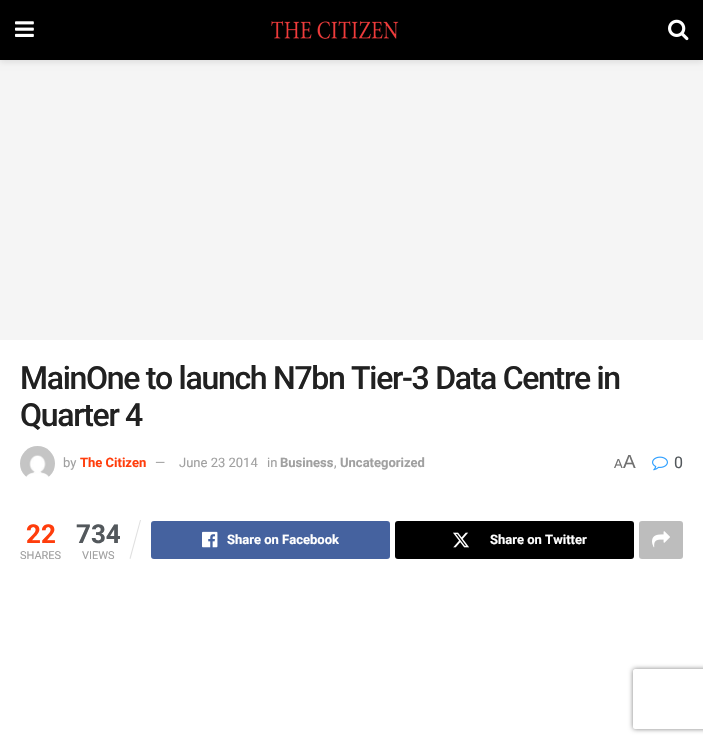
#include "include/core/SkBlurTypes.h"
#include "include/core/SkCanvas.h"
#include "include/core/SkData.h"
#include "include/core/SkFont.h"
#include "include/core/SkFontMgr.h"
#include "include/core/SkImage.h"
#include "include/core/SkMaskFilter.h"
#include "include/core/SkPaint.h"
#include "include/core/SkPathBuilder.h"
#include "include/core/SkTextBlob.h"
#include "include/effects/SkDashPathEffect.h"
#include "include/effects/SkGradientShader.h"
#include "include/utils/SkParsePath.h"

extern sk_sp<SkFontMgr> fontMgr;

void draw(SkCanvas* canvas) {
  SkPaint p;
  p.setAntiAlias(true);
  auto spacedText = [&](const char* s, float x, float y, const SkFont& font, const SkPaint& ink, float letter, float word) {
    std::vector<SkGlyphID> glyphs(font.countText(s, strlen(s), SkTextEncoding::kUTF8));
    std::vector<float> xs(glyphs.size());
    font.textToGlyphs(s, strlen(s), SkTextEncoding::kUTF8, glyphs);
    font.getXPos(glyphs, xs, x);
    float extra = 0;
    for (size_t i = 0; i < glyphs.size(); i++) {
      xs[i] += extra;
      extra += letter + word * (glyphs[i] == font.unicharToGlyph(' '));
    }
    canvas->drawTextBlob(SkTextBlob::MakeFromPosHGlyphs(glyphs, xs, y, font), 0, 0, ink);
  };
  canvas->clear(SK_ColorWHITE);
  p.setColor(SkColorSetRGB(245, 245, 245));
  canvas->drawRect(SkRect::MakeLTRB(0, 60, 703, 340), p);
  p.setColor(SkColorSetARGB(26, 0, 0, 0));
  p.setMaskFilter(SkMaskFilter::MakeBlur(kNormal_SkBlurStyle, 3));
  canvas->drawRect(SkRect::MakeLTRB(0, 2, 703, 62), p);
  p.setMaskFilter(nullptr);
  p.setColor(SK_ColorBLACK);
  canvas->drawRect(SkRect::MakeLTRB(0, 0, 703, 60), p);
  canvas->drawImageRect(SkImages::DeferredFromEncodedData(SkData::MakeFromFileName("images/1.png")), SkRect::MakeLTRB(15, 21, 34, 37), SkSamplingOptions());
  canvas->drawImageRect(SkImages::DeferredFromEncodedData(SkData::MakeFromFileName("images/2.png")), SkRect::MakeLTRB(271, 21, 399, 39), SkSamplingOptions());
  canvas->drawImageRect(SkImages::DeferredFromEncodedData(SkData::MakeFromFileName("images/3.png")), SkRect::MakeLTRB(668, 19, 689, 41), SkSamplingOptions());
  canvas->drawImageRect(SkImages::DeferredFromEncodedData(SkData::MakeFromFileName("images/4.png")), SkRect::MakeLTRB(20, 446, 55, 477), SkSamplingOptions());
  canvas->drawImageRect(SkImages::DeferredFromEncodedData(SkData::MakeFromFileName("images/5.png")), SkRect::MakeLTRB(652, 456, 668, 471), SkSamplingOptions());
  p.setColor(SkColorSetRGB(224, 224, 224));
  canvas->drawPath(SkPathBuilder().moveTo(140, 520).lineTo(141, 520).lineTo(130.5f, 559).lineTo(129.5f, 558.5f).close().detach(), p);
  p.setColor(SkColorSetRGB(69, 98, 159));
  canvas->drawRoundRect(SkRect::MakeLTRB(151, 521, 390, 559), 3, 3, p);
  canvas->drawImageRect(SkImages::DeferredFromEncodedData(SkData::MakeFromFileName("images/6.png")), SkRect::MakeLTRB(202, 531, 218, 548), SkSamplingOptions());
  p.setColor(SK_ColorBLACK);
  canvas->drawRoundRect(SkRect::MakeLTRB(395, 521, 634, 559), 3, 3, p);
  canvas->drawImageRect(SkImages::DeferredFromEncodedData(SkData::MakeFromFileName("images/7.png")), SkRect::MakeLTRB(453, 532, 469, 548), SkSamplingOptions());
  p.setColor(SkColorSetRGB(189, 189, 189));
  canvas->drawRoundRect(SkRect::MakeLTRB(639, 521, 683, 559), 3, 3, p);
  canvas->drawImageRect(SkImages::DeferredFromEncodedData(SkData::MakeFromFileName("images/8.png")), SkRect::MakeLTRB(652, 531, 670, 548), SkSamplingOptions());
  canvas->save();
  canvas->clipPath(SkPathBuilder(SkPathFillType::kEvenOdd).moveTo(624, 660).lineTo(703, 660).lineTo(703, 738).lineTo(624, 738).close().moveTo(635, 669).lineTo(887, 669).cubicTo(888, 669, 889, 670, 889, 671).lineTo(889, 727).cubicTo(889, 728, 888, 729, 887, 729).lineTo(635, 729).cubicTo(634, 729, 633, 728, 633, 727).lineTo(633, 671).cubicTo(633, 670, 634, 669, 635, 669).close().detach(), true);
  p.setColor(SkColorSetRGB(128, 128, 128));
  p.setMaskFilter(SkMaskFilter::MakeBlur(kNormal_SkBlurStyle, 2.5f));
  canvas->drawRoundRect(SkRect::MakeLTRB(633, 669, 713, 729), 2, 2, p);
  p.setMaskFilter(nullptr);
  canvas->restore();
  SkFont font1(fontMgr->matchFamilyStyle("Roboto", SkFontStyle(500, SkFontStyle::kNormal_Width, SkFontStyle::kUpright_Slant)), 32);
  font1.setSubpixel(true);
  p.setColor(SkColorSetRGB(33, 33, 33));
  spacedText("MainOne to launch N7bn Tier-3 Data Centre in", 20, 389, font1, p, -1.3f, 0);
  spacedText("Quarter 4", 20, 426, font1, p, -1.3f, 0);
  SkFont font2(fontMgr->matchFamilyStyle("Roboto", SkFontStyle::Normal()), 13);
  font2.setSubpixel(true);
  p.setColor(SkColorSetRGB(160, 160, 160));
  canvas->drawString("by", 63, 467, font2, p);
  SkFont font3(fontMgr->matchFamilyStyle("Roboto", SkFontStyle::Bold()), 13);
  font3.setSubpixel(true);
  p.setColor(SkColorSetRGB(255, 61, 12));
  canvas->drawString("The Citizen", 80, 467, font3, p);
  p.setColor(SkColorSetRGB(160, 160, 160));
  canvas->drawString("—", 155, 467, font2, p);
  canvas->drawString("June 23 2014", 179, 467, font2, p);
  canvas->drawString("in", 267, 467, font2, p);
  canvas->drawString("Business", 280, 467, font3, p);
  canvas->drawString(",", 334, 467, font2, p);
  canvas->drawString("Uncategorized", 340, 467, font3, p);
  SkFont font4(fontMgr->matchFamilyStyle("Liberation Sans", SkFontStyle::Normal()), 13);
  font4.setSubpixel(true);
  p.setColor(SkColorSetRGB(112, 112, 112));
  canvas->drawString("A", 614, 468, font4, p);
  SkFont font5(fontMgr->matchFamilyStyle("Liberation Sans", SkFontStyle::Normal()), 19);
  font5.setSubpixel(true);
  canvas->drawString("A", 623, 468, font5, p);
  SkFont font6(fontMgr->matchFamilyStyle("Roboto", SkFontStyle::Normal()), 16);
  font6.setSubpixel(true);
  p.setColor(SkColorSetRGB(83, 88, 92));
  canvas->drawString("0", 674, 468, font6, p);
  SkFont font7(fontMgr->matchFamilyStyle("Roboto", SkFontStyle::Bold()), 26);
  font7.setSubpixel(true);
  p.setColor(SkColorSetRGB(255, 61, 12));
  canvas->drawString("22", 26, 543, font7, p);
  SkFont font8(fontMgr->matchFamilyStyle("Roboto", SkFontStyle::Normal()), 11);
  font8.setSubpixel(true);
  p.setColor(SkColorSetRGB(160, 160, 160));
  canvas->drawString("SHARES", 20, 559, font8, p);
  p.setColor(SkColorSetRGB(83, 88, 92));
  canvas->drawString("734", 76, 543, font7, p);
  p.setColor(SkColorSetRGB(160, 160, 160));
  canvas->drawString("VIEWS", 82, 559, font8, p);
  p.setColor(SK_ColorWHITE);
  canvas->drawString("Share on Facebook", 227, 544, font3, p);
  canvas->drawString("Share on Twitter", 490, 544, font3, p);
}
